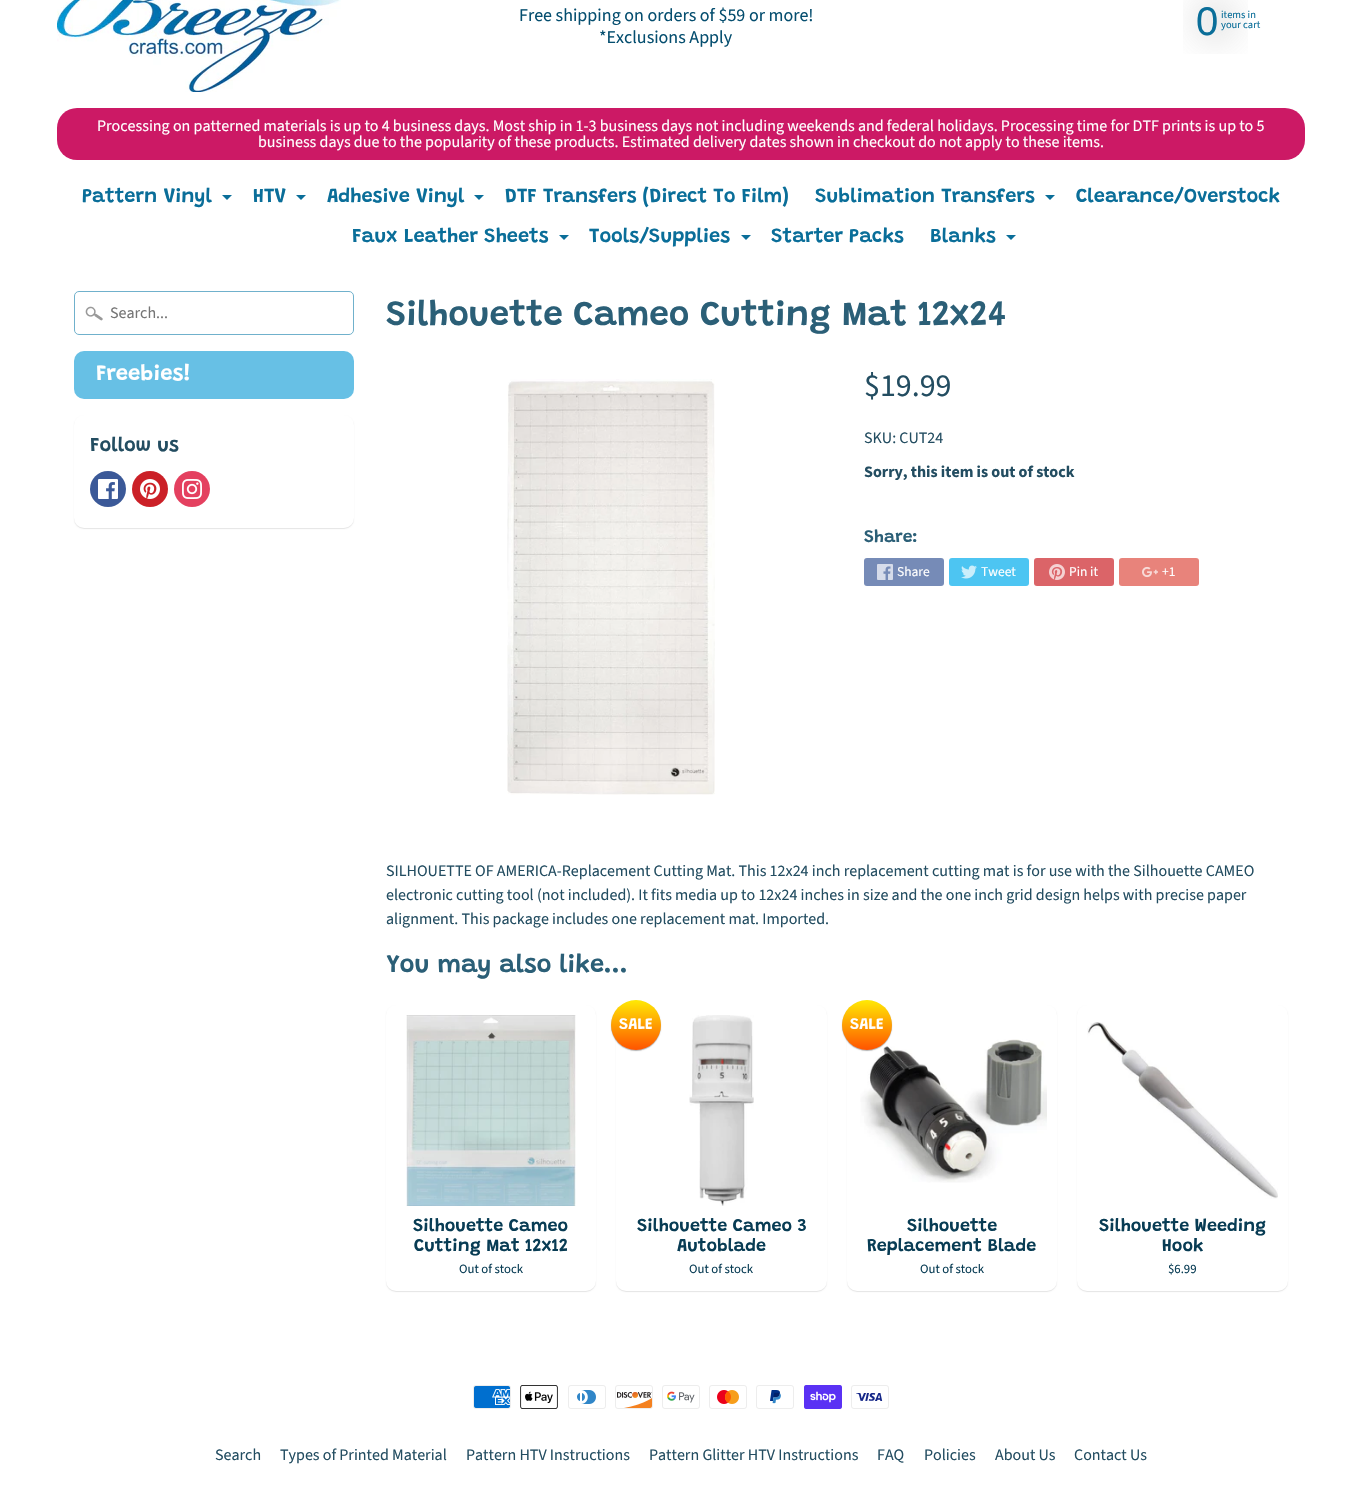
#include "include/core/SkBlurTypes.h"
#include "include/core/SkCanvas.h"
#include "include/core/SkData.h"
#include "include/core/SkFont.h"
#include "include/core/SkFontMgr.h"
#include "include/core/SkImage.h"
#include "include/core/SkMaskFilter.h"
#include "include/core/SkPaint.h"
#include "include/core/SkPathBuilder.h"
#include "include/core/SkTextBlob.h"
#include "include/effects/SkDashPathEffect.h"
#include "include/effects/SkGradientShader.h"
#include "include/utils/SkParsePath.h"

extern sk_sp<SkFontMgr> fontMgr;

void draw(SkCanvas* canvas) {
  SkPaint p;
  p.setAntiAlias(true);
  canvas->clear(SK_ColorWHITE);
  canvas->drawImageRect(SkImages::DeferredFromEncodedData(SkData::MakeFromFileName("images/1.png")), SkRect::MakeLTRB(57, 0, 341, 92), SkSamplingOptions());
  canvas->drawImageRect(SkImages::DeferredFromEncodedData(SkData::MakeFromFileName("images/2.png")), SkRect::MakeLTRB(1183, 0, 1248, 54), SkSamplingOptions());
  p.setColor(SkColorSetRGB(204, 25, 101));
  canvas->drawRoundRect(SkRect::MakeLTRB(57, 108, 1305, 160), 20, 20, p);
  p.setColor(SkColorSetRGB(10, 110, 153));
  canvas->drawPath(SkPathBuilder().moveTo(222, 195).lineTo(232, 195).lineTo(227, 200).close().detach(), p);
  canvas->drawPath(SkPathBuilder().moveTo(296, 195).lineTo(306, 195).lineTo(301, 200).close().detach(), p);
  canvas->drawPath(SkPathBuilder().moveTo(474, 195).lineTo(484, 195).lineTo(479, 200).close().detach(), p);
  canvas->drawPath(SkPathBuilder().moveTo(1045, 195).lineTo(1055, 195).lineTo(1050, 200).close().detach(), p);
  canvas->drawPath(SkPathBuilder().moveTo(559, 235).lineTo(569, 235).lineTo(564, 240).close().detach(), p);
  canvas->drawPath(SkPathBuilder().moveTo(741, 235).lineTo(751, 235).lineTo(746, 240).close().detach(), p);
  canvas->drawPath(SkPathBuilder().moveTo(1006, 235).lineTo(1016, 235).lineTo(1011, 240).close().detach(), p);
  canvas->drawImageRect(SkImages::DeferredFromEncodedData(SkData::MakeFromFileName("images/3.png")), SkRect::MakeLTRB(85, 306, 103, 321), SkSamplingOptions());
  p.setStyle(SkPaint::kStroke_Style);
  p.setStrokeWidth(1);
  p.setColor(SkColorSetRGB(112, 177, 204));
  canvas->drawRoundRect(SkRect::MakeLTRB(74.5f, 291.5f, 353.5f, 334.5f), 4.5f, 4.5f, p);
  p.setStyle(SkPaint::kFill_Style);
  p.setColor(SkColorSetRGB(103, 192, 229));
  canvas->drawRoundRect(SkRect::MakeLTRB(74, 351, 354, 399), 10, 10, p);
  p.setColor(SkColorSetARGB(26, 0, 0, 0));
  p.setMaskFilter(SkMaskFilter::MakeBlur(kNormal_SkBlurStyle, 0.5f));
  canvas->drawRoundRect(SkRect::MakeLTRB(74, 416, 354, 529), 10, 10, p);
  p.setMaskFilter(nullptr);
  p.setColor(SK_ColorWHITE);
  canvas->drawRoundRect(SkRect::MakeLTRB(74, 415, 354, 528), 10, 10, p);
  p.setColor(SkColorSetRGB(59, 89, 152));
  canvas->drawCircle(108, 489, 18, p);
  canvas->drawImageRect(SkImages::DeferredFromEncodedData(SkData::MakeFromFileName("images/4.png")), SkRect::MakeLTRB(98, 479, 118, 499), SkSamplingOptions());
  p.setColor(SkColorSetRGB(203, 32, 39));
  canvas->drawCircle(150, 489, 18, p);
  canvas->drawImageRect(SkImages::DeferredFromEncodedData(SkData::MakeFromFileName("images/5.png")), SkRect::MakeLTRB(140, 479, 160, 499), SkSamplingOptions());
  p.setColor(SkColorSetRGB(228, 64, 95));
  canvas->drawCircle(192, 489, 18, p);
  canvas->drawImageRect(SkImages::DeferredFromEncodedData(SkData::MakeFromFileName("images/6.png")), SkRect::MakeLTRB(182, 479, 202, 499), SkSamplingOptions());
  canvas->drawImageRect(SkImages::DeferredFromEncodedData(SkData::MakeFromFileName("images/7.png")), SkRect::MakeLTRB(507, 379, 715, 795), SkSamplingOptions());
  p.setColor(SkColorSetRGB(118, 139, 183));
  canvas->drawRoundRect(SkRect::MakeLTRB(864, 558, 944, 586), 3, 3, p);
  canvas->drawImageRect(SkImages::DeferredFromEncodedData(SkData::MakeFromFileName("images/8.png")), SkRect::MakeLTRB(877, 564, 893, 580), SkSamplingOptions());
  p.setColor(SkColorSetRGB(77, 197, 242));
  canvas->drawRoundRect(SkRect::MakeLTRB(949, 558, 1029, 586), 3, 3, p);
  canvas->drawImageRect(SkImages::DeferredFromEncodedData(SkData::MakeFromFileName("images/9.png")), SkRect::MakeLTRB(961, 565, 977, 579), SkSamplingOptions());
  p.setColor(SkColorSetRGB(219, 100, 104));
  canvas->drawRoundRect(SkRect::MakeLTRB(1034, 558, 1114, 586), 3, 3, p);
  canvas->drawImageRect(SkImages::DeferredFromEncodedData(SkData::MakeFromFileName("images/10.png")), SkRect::MakeLTRB(1049, 564, 1065, 580), SkSamplingOptions());
  p.setColor(SkColorSetRGB(232, 131, 123));
  canvas->drawRoundRect(SkRect::MakeLTRB(1119, 558, 1199, 586), 3, 3, p);
  canvas->drawImageRect(SkImages::DeferredFromEncodedData(SkData::MakeFromFileName("images/11.png")), SkRect::MakeLTRB(1142, 566, 1158, 578), SkSamplingOptions());
  p.setColor(SkColorSetARGB(26, 0, 0, 0));
  p.setMaskFilter(SkMaskFilter::MakeBlur(kNormal_SkBlurStyle, 0.5f));
  canvas->drawRoundRect(SkRect::MakeLTRB(386, 1006, 596, 1292), 10, 10, p);
  p.setMaskFilter(nullptr);
  p.setColor(SK_ColorWHITE);
  canvas->drawRoundRect(SkRect::MakeLTRB(386, 1005, 596, 1291), 10, 10, p);
  canvas->drawImageRect(SkImages::DeferredFromEncodedData(SkData::MakeFromFileName("images/12.png")), SkRect::MakeLTRB(406, 1015, 576, 1206), SkSamplingOptions());
  p.setColor(SkColorSetARGB(26, 0, 0, 0));
  p.setMaskFilter(SkMaskFilter::MakeBlur(kNormal_SkBlurStyle, 0.5f));
  canvas->drawRoundRect(SkRect::MakeLTRB(616, 1006, 827, 1292), 10, 10, p);
  p.setMaskFilter(nullptr);
  p.setColor(SK_ColorWHITE);
  canvas->drawRoundRect(SkRect::MakeLTRB(616, 1005, 827, 1291), 10, 10, p);
  p.setColor(SkColorSetARGB(77, 0, 0, 0));
  p.setMaskFilter(SkMaskFilter::MakeBlur(kNormal_SkBlurStyle, 0.5f));
  canvas->drawRoundRect(SkRect::MakeLTRB(611, 1001, 661, 1051), 25, 25, p);
  p.setMaskFilter(nullptr);
  {
    const SkColor colors[] = {SkColorSetRGB(255, 234, 4), SkColorSetRGB(255, 83, 0)};
    const float stops[] = {0, 1};
    const SkPoint ends[] = {{636, 1000}, {636, 1050}};
    p.setShader(SkGradientShader::MakeLinear(ends, colors, stops, 2, SkTileMode::kClamp));
    p.setAlpha(255);
  }
  canvas->drawCircle(636, 1025, 25, p);
  canvas->drawImageRect(SkImages::DeferredFromEncodedData(SkData::MakeFromFileName("images/13.png")), SkRect::MakeLTRB(689, 1015, 754, 1206), SkSamplingOptions());
  p.setShader(nullptr);
  p.setColor(SkColorSetARGB(26, 0, 0, 0));
  p.setMaskFilter(SkMaskFilter::MakeBlur(kNormal_SkBlurStyle, 0.5f));
  canvas->drawRoundRect(SkRect::MakeLTRB(847, 1006, 1057, 1292), 10, 10, p);
  p.setMaskFilter(nullptr);
  p.setColor(SK_ColorWHITE);
  canvas->drawRoundRect(SkRect::MakeLTRB(847, 1005, 1057, 1291), 10, 10, p);
  canvas->drawImageRect(SkImages::DeferredFromEncodedData(SkData::MakeFromFileName("images/14.png")), SkRect::MakeLTRB(860, 1039, 1047, 1183), SkSamplingOptions());
  p.setColor(SkColorSetARGB(77, 0, 0, 0));
  p.setMaskFilter(SkMaskFilter::MakeBlur(kNormal_SkBlurStyle, 0.5f));
  canvas->drawRoundRect(SkRect::MakeLTRB(842, 1001, 892, 1051), 25, 25, p);
  p.setMaskFilter(nullptr);
  {
    const SkColor colors[] = {SkColorSetRGB(255, 234, 4), SkColorSetRGB(255, 83, 0)};
    const float stops[] = {0, 1};
    const SkPoint ends[] = {{867, 1000}, {867, 1050}};
    p.setShader(SkGradientShader::MakeLinear(ends, colors, stops, 2, SkTileMode::kClamp));
    p.setAlpha(255);
  }
  canvas->drawCircle(867, 1025, 25, p);
  p.setShader(nullptr);
  p.setColor(SkColorSetARGB(26, 0, 0, 0));
  p.setMaskFilter(SkMaskFilter::MakeBlur(kNormal_SkBlurStyle, 0.5f));
  canvas->drawRoundRect(SkRect::MakeLTRB(1077, 1006, 1288, 1292), 10, 10, p);
  p.setMaskFilter(nullptr);
  p.setColor(SK_ColorWHITE);
  canvas->drawRoundRect(SkRect::MakeLTRB(1077, 1005, 1288, 1291), 10, 10, p);
  canvas->drawImageRect(SkImages::DeferredFromEncodedData(SkData::MakeFromFileName("images/15.png")), SkRect::MakeLTRB(1087, 1022, 1278, 1199), SkSamplingOptions());
  canvas->drawImageRect(SkImages::DeferredFromEncodedData(SkData::MakeFromFileName("images/16.png")), SkRect::MakeLTRB(473, 1385, 511, 1409), SkSamplingOptions());
  canvas->drawImageRect(SkImages::DeferredFromEncodedData(SkData::MakeFromFileName("images/17.png")), SkRect::MakeLTRB(520, 1385, 558, 1409), SkSamplingOptions());
  canvas->drawImageRect(SkImages::DeferredFromEncodedData(SkData::MakeFromFileName("images/18.png")), SkRect::MakeLTRB(568, 1385, 606, 1409), SkSamplingOptions());
  canvas->drawImageRect(SkImages::DeferredFromEncodedData(SkData::MakeFromFileName("images/19.png")), SkRect::MakeLTRB(615, 1385, 653, 1409), SkSamplingOptions());
  canvas->drawImageRect(SkImages::DeferredFromEncodedData(SkData::MakeFromFileName("images/20.png")), SkRect::MakeLTRB(662, 1385, 700, 1409), SkSamplingOptions());
  canvas->drawImageRect(SkImages::DeferredFromEncodedData(SkData::MakeFromFileName("images/21.png")), SkRect::MakeLTRB(709, 1385, 747, 1409), SkSamplingOptions());
  canvas->drawImageRect(SkImages::DeferredFromEncodedData(SkData::MakeFromFileName("images/22.png")), SkRect::MakeLTRB(756, 1385, 794, 1409), SkSamplingOptions());
  canvas->drawImageRect(SkImages::DeferredFromEncodedData(SkData::MakeFromFileName("images/23.png")), SkRect::MakeLTRB(804, 1385, 842, 1409), SkSamplingOptions());
  canvas->drawImageRect(SkImages::DeferredFromEncodedData(SkData::MakeFromFileName("images/24.png")), SkRect::MakeLTRB(851, 1385, 889, 1409), SkSamplingOptions());
  SkFont font1(fontMgr->matchFamilyStyle("Source Sans Pro", SkFontStyle::Normal()), 18);
  font1.setSubpixel(true);
  p.setColor(SkColorSetRGB(5, 78, 111));
  canvas->drawString("Free shipping on orders of $59 or more!", 519, 21, font1, p);
  canvas->drawString("*Exclusions Apply", 599, 43, font1, p);
  SkFont font2(fontMgr->matchFamilyStyle("Liberation Sans", SkFontStyle::Normal()), 40);
  font2.setSubpixel(true);
  p.setColor(SkColorSetRGB(10, 110, 153));
  canvas->drawString("0", 1196, 35, font2, p);
  SkFont font3(fontMgr->matchFamilyStyle("Source Sans Pro", SkFontStyle::Normal()), 10.5f);
  font3.setSubpixel(true);
  canvas->drawString("items in", 1221, 18, font3, p);
  canvas->drawString("your cart", 1221, 28, font3, p);
  SkFont font4(fontMgr->matchFamilyStyle("Source Sans Pro", SkFontStyle::Normal()), 16);
  font4.setSubpixel(true);
  p.setColor(SK_ColorWHITE);
  canvas->drawString("Processing on patterned materials is up to 4 business days. Most ship in 1-3 business days not including weekends and federal holidays. Processing time for DTF prints is up to 5", 97, 131, font4, p);
  canvas->drawString("business days due to the popularity of these products. Estimated delivery dates shown in checkout do not apply to these items.", 258, 147, font4, p);
  SkFont font5(fontMgr->matchFamilyStyle("Grandstander", SkFontStyle(600, SkFontStyle::kNormal_Width, SkFontStyle::kUpright_Slant)), 20);
  font5.setSubpixel(true);
  p.setColor(SkColorSetRGB(10, 110, 153));
  canvas->drawString("Pattern Vinyl", 82, 202, font5, p);
  canvas->drawString("HTV", 253, 202, font5, p);
  canvas->drawString("Adhesive Vinyl", 327, 202, font5, p);
  canvas->drawString("DTF Transfers (Direct To Film)", 505, 202, font5, p);
  canvas->drawString("Sublimation Transfers", 815, 202, font5, p);
  canvas->drawString("Clearance/Overstock", 1076, 202, font5, p);
  canvas->drawString("Faux Leather Sheets", 352, 242, font5, p);
  canvas->drawString("Tools/Supplies", 589, 242, font5, p);
  canvas->drawString("Starter Packs", 771, 242, font5, p);
  canvas->drawString("Blanks", 930, 242, font5, p);
  p.setColor(SkColorSetRGB(117, 117, 117));
  canvas->drawString("Search...", 110, 318, font4, p);
  SkFont font6(fontMgr->matchFamilyStyle("Grandstander", SkFontStyle(600, SkFontStyle::kNormal_Width, SkFontStyle::kUpright_Slant)), 22);
  font6.setSubpixel(true);
  p.setColor(SK_ColorWHITE);
  canvas->drawString("Freebies!", 96, 380, font6, p);
  p.setColor(SkColorSetRGB(35, 77, 97));
  canvas->drawString("Follow us", 90, 451, font5, p);
  SkFont font7(fontMgr->matchFamilyStyle("Grandstander", SkFontStyle(600, SkFontStyle::kNormal_Width, SkFontStyle::kUpright_Slant)), 35.25f);
  font7.setSubpixel(true);
  p.setColor(SkColorSetRGB(43, 95, 119));
  canvas->drawString("Silhouette Cameo Cutting Mat 12x24", 386, 325, font7, p);
  SkFont font8(fontMgr->matchFamilyStyle("Source Sans Pro", SkFontStyle::Normal()), 32);
  font8.setSubpixel(true);
  p.setColor(SkColorSetRGB(35, 77, 97));
  canvas->drawString("$19.99", 864, 396, font8, p);
  canvas->drawString("SKU: CUT24", 864, 443, font4, p);
  SkFont font9(fontMgr->matchFamilyStyle("Source Sans Pro", SkFontStyle::Bold()), 16);
  font9.setSubpixel(true);
  canvas->drawString("Sorry, this item is out of stock", 864, 477, font9, p);
  SkFont font10(fontMgr->matchFamilyStyle("Grandstander", SkFontStyle(600, SkFontStyle::kNormal_Width, SkFontStyle::kUpright_Slant)), 17.5f);
  font10.setSubpixel(true);
  p.setColor(SkColorSetRGB(43, 95, 119));
  canvas->drawString("Share:", 864, 542, font10, p);
  SkFont font11(fontMgr->matchFamilyStyle("Source Sans Pro", SkFontStyle::Normal()), 13.5f);
  font11.setSubpixel(true);
  p.setColor(SK_ColorWHITE);
  canvas->drawString("Share", 897, 576, font11, p);
  canvas->drawString("Tweet", 981, 576, font11, p);
  canvas->drawString("Pin it", 1069, 576, font11, p);
  canvas->drawString("+1", 1162, 576, font11, p);
  p.setColor(SkColorSetRGB(35, 77, 97));
  canvas->drawString("SILHOUETTE OF AMERICA-Replacement Cutting Mat. This 12x24 inch replacement cutting mat is for use with the Silhouette CAMEO", 386, 876, font4, p);
  canvas->drawString("electronic cutting tool (not included). It fits media up to 12x24 inches in size and the one inch grid design helps with precise paper", 386, 900, font4, p);
  canvas->drawString("alignment. This package includes one replacement mat. Imported.", 386, 924, font4, p);
  SkFont font12(fontMgr->matchFamilyStyle("Grandstander", SkFontStyle(600, SkFontStyle::kNormal_Width, SkFontStyle::kUpright_Slant)), 25.5f);
  font12.setSubpixel(true);
  p.setColor(SkColorSetRGB(43, 95, 119));
  canvas->drawString("You may also like...", 386, 972, font12, p);
  SkFont font13(fontMgr->matchFamilyStyle("Grandstander", SkFontStyle(600, SkFontStyle::kNormal_Width, SkFontStyle::kUpright_Slant)), 18);
  font13.setSubpixel(true);
  p.setColor(SkColorSetRGB(8, 60, 84));
  canvas->drawString("Silhouette Cameo", 413, 1231, font13, p);
  canvas->drawString("Cutting Mat 12x12", 414, 1251, font13, p);
  SkFont font14(fontMgr->matchFamilyStyle("Source Sans Pro", SkFontStyle::Normal()), 12.75f);
  font14.setSubpixel(true);
  canvas->drawString("Out of stock", 459, 1273, font14, p);
  SkFont font15(fontMgr->matchFamilyStyle("Grandstander", SkFontStyle(600, SkFontStyle::kNormal_Width, SkFontStyle::kUpright_Slant)), 16);
  font15.setSubpixel(true);
  p.setColor(SK_ColorWHITE);
  canvas->drawString("SALE", 619, 1029, font15, p);
  p.setColor(SkColorSetRGB(8, 60, 84));
  canvas->drawString("Silhouette Cameo 3", 637, 1231, font13, p);
  canvas->drawString("Autoblade", 677, 1251, font13, p);
  canvas->drawString("Out of stock", 689, 1273, font14, p);
  p.setColor(SK_ColorWHITE);
  canvas->drawString("SALE", 850, 1029, font15, p);
  p.setColor(SkColorSetRGB(8, 60, 84));
  canvas->drawString("Silhouette", 907, 1231, font13, p);
  canvas->drawString("Replacement Blade", 867, 1251, font13, p);
  canvas->drawString("Out of stock", 920, 1273, font14, p);
  canvas->drawString("Silhouette Weeding", 1099, 1231, font13, p);
  canvas->drawString("Hook", 1162, 1251, font13, p);
  canvas->drawString("$6.99", 1168, 1273, font14, p);
  p.setColor(SkColorSetRGB(35, 77, 97));
  canvas->drawString("Search", 215, 1460, font4, p);
  canvas->drawString("Types of Printed Material", 280, 1460, font4, p);
  canvas->drawString("Pattern HTV Instructions", 466, 1460, font4, p);
  canvas->drawString("Pattern Glitter HTV Instructions", 649, 1460, font4, p);
  canvas->drawString("FAQ", 877, 1460, font4, p);
  canvas->drawString("Policies", 924, 1460, font4, p);
  canvas->drawString("About Us", 995, 1460, font4, p);
  canvas->drawString("Contact Us", 1074, 1460, font4, p);
}
